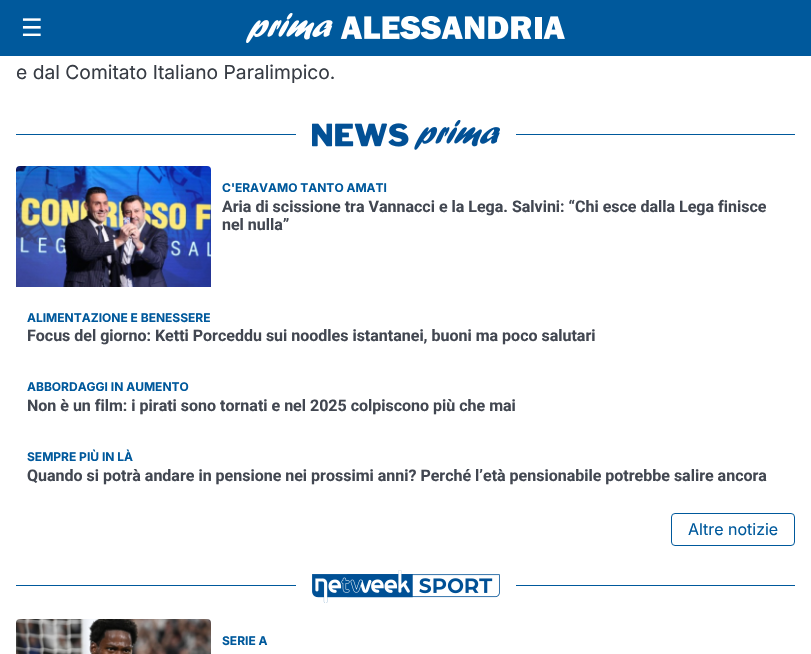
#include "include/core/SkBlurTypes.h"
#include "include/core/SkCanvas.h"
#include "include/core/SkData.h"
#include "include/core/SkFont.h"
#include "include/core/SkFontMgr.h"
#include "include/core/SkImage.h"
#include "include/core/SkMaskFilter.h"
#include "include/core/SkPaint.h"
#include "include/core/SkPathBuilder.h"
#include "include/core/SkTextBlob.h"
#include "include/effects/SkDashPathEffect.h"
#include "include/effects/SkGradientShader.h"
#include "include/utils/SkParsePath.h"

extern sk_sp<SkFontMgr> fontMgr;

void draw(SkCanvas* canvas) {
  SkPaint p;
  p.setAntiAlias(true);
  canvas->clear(SK_ColorWHITE);
  p.setColor(SkColorSetRGB(0, 89, 156));
  canvas->drawRect(SkRect::MakeLTRB(0, 0, 811, 56), p);
  canvas->drawImageRect(SkImages::DeferredFromEncodedData(SkData::MakeFromFileName("images/1.png")), SkRect::MakeLTRB(246, 13, 565, 43), SkSamplingOptions());
  canvas->drawRect(SkRect::MakeLTRB(16, 134, 795, 135), p);
  p.setColor(SK_ColorWHITE);
  canvas->drawRect(SkRect::MakeLTRB(296, 134, 516, 135), p);
  canvas->drawImageRect(SkImages::DeferredFromEncodedData(SkData::MakeFromFileName("images/2.png")), SkRect::MakeLTRB(312, 120, 500, 150), SkSamplingOptions());
  canvas->drawImageRect(SkImages::DeferredFromEncodedData(SkData::MakeFromFileName("images/3.png")), SkRect::MakeLTRB(16, 166, 211, 287), SkSamplingOptions());
  p.setStyle(SkPaint::kStroke_Style);
  p.setStrokeWidth(1);
  p.setColor(SkColorSetRGB(0, 89, 156));
  canvas->drawRoundRect(SkRect::MakeLTRB(671.5f, 513.5f, 794.5f, 545.5f), 3.5f, 3.5f, p);
  p.setStyle(SkPaint::kFill_Style);
  canvas->drawRect(SkRect::MakeLTRB(16, 585, 795, 586), p);
  p.setColor(SK_ColorWHITE);
  canvas->drawRect(SkRect::MakeLTRB(296, 585, 516, 586), p);
  canvas->drawImageRect(SkImages::DeferredFromEncodedData(SkData::MakeFromFileName("images/4.png")), SkRect::MakeLTRB(312, 570, 500, 603), SkSamplingOptions());
  canvas->drawImageRect(SkImages::DeferredFromEncodedData(SkData::MakeFromFileName("images/5.png")), SkRect::MakeLTRB(16, 619, 211, 654), SkSamplingOptions());
  SkFont font1(fontMgr->matchFamilyStyle("DejaVu Sans", SkFontStyle::Normal()), 24);
  font1.setSubpixel(true);
  canvas->drawString("☰", 21, 36, font1, p);
  SkFont font2(fontMgr->matchFamilyStyle("Inter", SkFontStyle::Normal()), 19.25f);
  font2.setSubpixel(true);
  p.setColor(SkColorSetRGB(55, 60, 68));
  canvas->drawString("e dal Comitato Italiano Paralimpico.", 16, 79, font2, p);
  SkFont font3(fontMgr->matchFamilyStyle("Inter", SkFontStyle::Bold()), 12);
  font3.setSubpixel(true);
  p.setColor(SkColorSetRGB(0, 89, 156));
  canvas->drawString("C'ERAVAMO TANTO AMATI", 222, 192, font3, p);
  SkFont font4(fontMgr->matchFamilyStyle("Roboto", SkFontStyle::Bold()), 16);
  font4.setSubpixel(true);
  p.setColor(SkColorSetRGB(66, 71, 81));
  canvas->drawString("Aria di scissione tra Vannacci e la Lega. Salvini: “Chi esce dalla Lega finisce", 222, 212, font4, p);
  canvas->drawString("nel nulla”", 222, 230, font4, p);
  p.setColor(SkColorSetRGB(0, 89, 156));
  canvas->drawString("ALIMENTAZIONE E BENESSERE", 27, 322, font3, p);
  p.setColor(SkColorSetRGB(66, 71, 81));
  canvas->drawString("Focus del giorno: Ketti Porceddu sui noodles istantanei, buoni ma poco salutari", 27, 341, font4, p);
  p.setColor(SkColorSetRGB(0, 89, 156));
  canvas->drawString("ABBORDAGGI IN AUMENTO", 27, 391, font3, p);
  p.setColor(SkColorSetRGB(66, 71, 81));
  canvas->drawString("Non è un film: i pirati sono tornati e nel 2025 colpiscono più che mai", 27, 411, font4, p);
  p.setColor(SkColorSetRGB(0, 89, 156));
  canvas->drawString("SEMPRE PIÙ IN LÀ", 27, 461, font3, p);
  p.setColor(SkColorSetRGB(66, 71, 81));
  canvas->drawString("Quando si potrà andare in pensione nei prossimi anni? Perché l’età pensionabile potrebbe salire ancora", 27, 481, font4, p);
  SkFont font5(fontMgr->matchFamilyStyle("Inter", SkFontStyle::Normal()), 16);
  font5.setSubpixel(true);
  p.setColor(SkColorSetRGB(0, 89, 156));
  canvas->drawString("Altre notizie", 688, 535, font5, p);
  canvas->drawString("SERIE A", 222, 645, font3, p);
}
